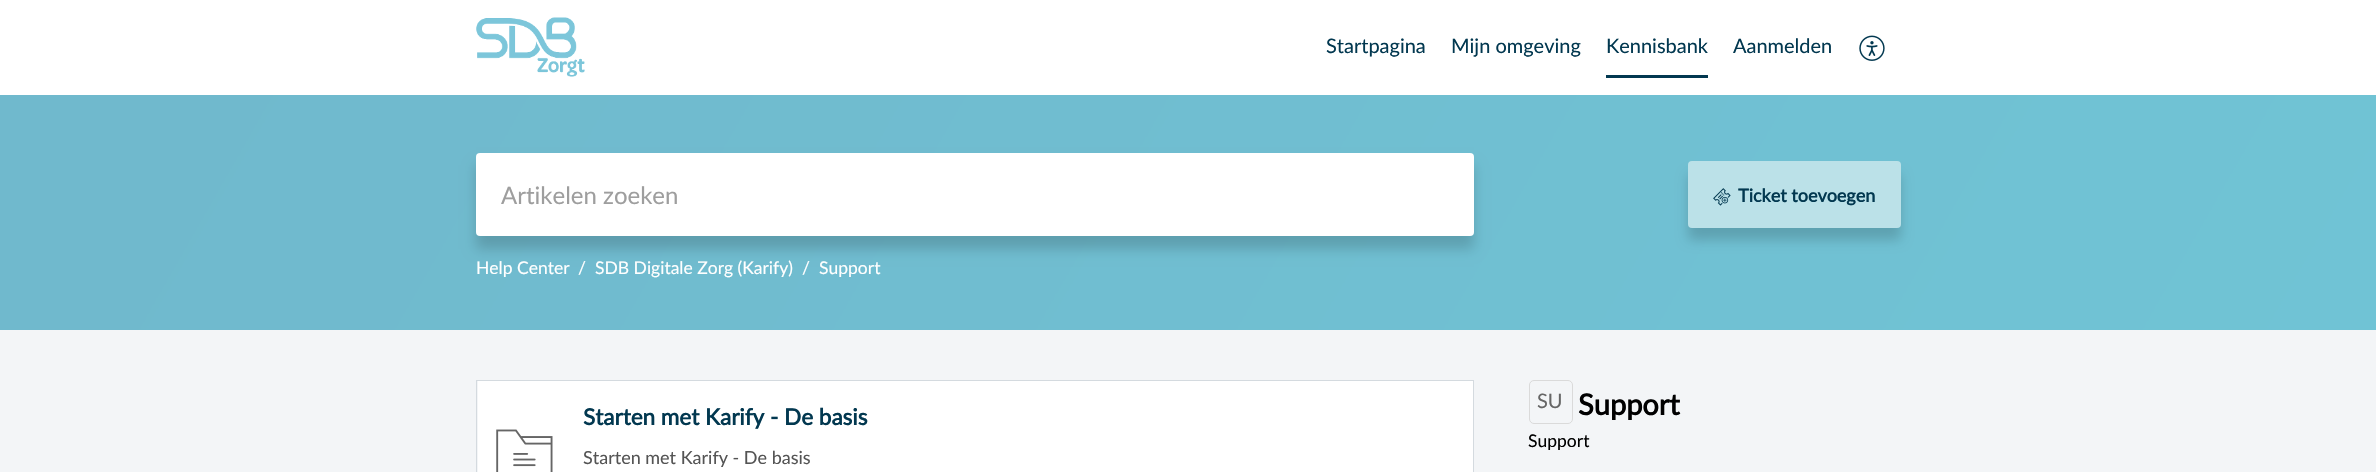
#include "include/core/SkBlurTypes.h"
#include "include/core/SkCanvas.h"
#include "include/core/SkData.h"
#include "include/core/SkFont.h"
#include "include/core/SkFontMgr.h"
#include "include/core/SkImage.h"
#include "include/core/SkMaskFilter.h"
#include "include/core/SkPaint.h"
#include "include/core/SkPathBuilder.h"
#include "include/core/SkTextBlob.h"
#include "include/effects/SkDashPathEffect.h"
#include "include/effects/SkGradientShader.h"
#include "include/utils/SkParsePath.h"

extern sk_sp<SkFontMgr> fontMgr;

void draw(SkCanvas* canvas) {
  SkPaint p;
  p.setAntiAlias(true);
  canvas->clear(SkColorSetRGB(243, 245, 247));
  p.setColor(SK_ColorWHITE);
  canvas->drawRect(SkRect::MakeLTRB(0, 0, 2376, 95), p);
  canvas->drawImageRect(SkImages::DeferredFromEncodedData(SkData::MakeFromFileName("images/1.png")), SkRect::MakeLTRB(476, 17, 585, 77), SkSamplingOptions());
  p.setColor(SkColorSetRGB(2, 56, 80));
  canvas->drawRect(SkRect::MakeLTRB(1606, 75, 1708, 78), p);
  canvas->drawImageRect(SkImages::DeferredFromEncodedData(SkData::MakeFromFileName("images/2.png")), SkRect::MakeLTRB(1859, 35, 1885, 61), SkSamplingOptions());
  canvas->drawImageRect(SkImages::DeferredFromEncodedData(SkData::MakeFromFileName("images/3.png")), SkRect::MakeLTRB(0, 95, 2376, 330), SkSamplingOptions());
  p.setColor(SkColorSetARGB(41, 0, 0, 0));
  p.setMaskFilter(SkMaskFilter::MakeBlur(kNormal_SkBlurStyle, 6));
  canvas->drawRect(SkRect::MakeLTRB(476, 165, 1474, 249), p);
  p.setMaskFilter(nullptr);
  p.setColor(SK_ColorWHITE);
  canvas->drawRoundRect(SkRect::MakeLTRB(476, 153, 1474, 236), 4, 4, p);
  p.setColor(SkColorSetARGB(41, 0, 0, 0));
  p.setMaskFilter(SkMaskFilter::MakeBlur(kNormal_SkBlurStyle, 6));
  canvas->drawRoundRect(SkRect::MakeLTRB(1688, 174, 1901, 240), 4, 4, p);
  p.setMaskFilter(nullptr);
  p.setColor(SkColorSetRGB(187, 225, 232));
  canvas->drawRoundRect(SkRect::MakeLTRB(1688, 161, 1901, 228), 4, 4, p);
  canvas->drawImageRect(SkImages::DeferredFromEncodedData(SkData::MakeFromFileName("images/4.png")), SkRect::MakeLTRB(1713, 188, 1731, 206), SkSamplingOptions());
  p.setStyle(SkPaint::kStroke_Style);
  p.setStrokeWidth(1);
  p.setColor(SkColorSetRGB(212, 218, 223));
  canvas->drawRect(SkRect::MakeLTRB(476.5f, 380.5f, 1473.5f, 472.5f), p);
  p.setStyle(SkPaint::kFill_Style);
  p.setColor(SK_ColorWHITE);
  canvas->drawRect(SkRect::MakeLTRB(478, 381, 1473, 472), p);
  canvas->drawImageRect(SkImages::DeferredFromEncodedData(SkData::MakeFromFileName("images/5.png")), SkRect::MakeLTRB(496, 429, 553, 472), SkSamplingOptions());
  p.setStyle(SkPaint::kStroke_Style);
  p.setColor(SkColorSetRGB(218, 218, 218));
  canvas->drawRoundRect(SkRect::MakeLTRB(1529.5f, 380.5f, 1572.5f, 423.5f), 4.5f, 4.5f, p);
  SkFont font1(fontMgr->matchFamilyStyle("Lato", SkFontStyle::Normal()), 20);
  font1.setSubpixel(true);
  p.setStyle(SkPaint::kFill_Style);
  p.setColor(SkColorSetRGB(2, 56, 80));
  canvas->drawString("Startpagina", 1326, 53, font1, p);
  canvas->drawString("Mijn omgeving", 1451, 53, font1, p);
  canvas->drawString("Kennisbank", 1606, 53, font1, p);
  canvas->drawString("Aanmelden", 1733, 53, font1, p);
  SkFont font2(fontMgr->matchFamilyStyle("Lato", SkFontStyle::Normal()), 24);
  font2.setSubpixel(true);
  p.setColor(SkColorSetRGB(158, 158, 158));
  canvas->drawString("Artikelen zoeken", 501, 204, font2, p);
  SkFont font3(fontMgr->matchFamilyStyle("Lato", SkFontStyle::Bold()), 18);
  font3.setSubpixel(true);
  p.setColor(SkColorSetRGB(2, 56, 80));
  canvas->drawString("Ticket toevoegen", 1738, 202, font3, p);
  SkFont font4(fontMgr->matchFamilyStyle("Lato", SkFontStyle::Normal()), 17.5f);
  font4.setSubpixel(true);
  p.setColor(SK_ColorWHITE);
  canvas->drawString("Help Center", 476, 274, font4, p);
  canvas->drawString("/", 578, 274, font4, p);
  canvas->drawString("SDB Digitale Zorg (Karify)", 595, 274, font4, p);
  canvas->drawString("/", 802, 274, font4, p);
  canvas->drawString("Support", 819, 274, font4, p);
  SkFont font5(fontMgr->matchFamilyStyle("Lato", SkFontStyle::Bold()), 22.5f);
  font5.setSubpixel(true);
  p.setColor(SkColorSetRGB(2, 56, 80));
  canvas->drawString("Starten met Karify - De basis", 583, 425, font5, p);
  SkFont font6(fontMgr->matchFamilyStyle("Lato", SkFontStyle::Normal()), 18);
  font6.setSubpixel(true);
  p.setColor(SkColorSetRGB(84, 84, 84));
  canvas->drawString("Starten met Karify - De basis", 583, 464, font6, p);
  p.setColor(SkColorSetRGB(102, 102, 102));
  canvas->drawString("SU", 1537, 408, font1, p);
  SkFont font7(fontMgr->matchFamilyStyle("Lato", SkFontStyle::Bold()), 29);
  font7.setSubpixel(true);
  p.setColor(SK_ColorBLACK);
  canvas->drawString("Support", 1578, 415, font7, p);
  canvas->drawString("Support", 1528, 447, font4, p);
}
